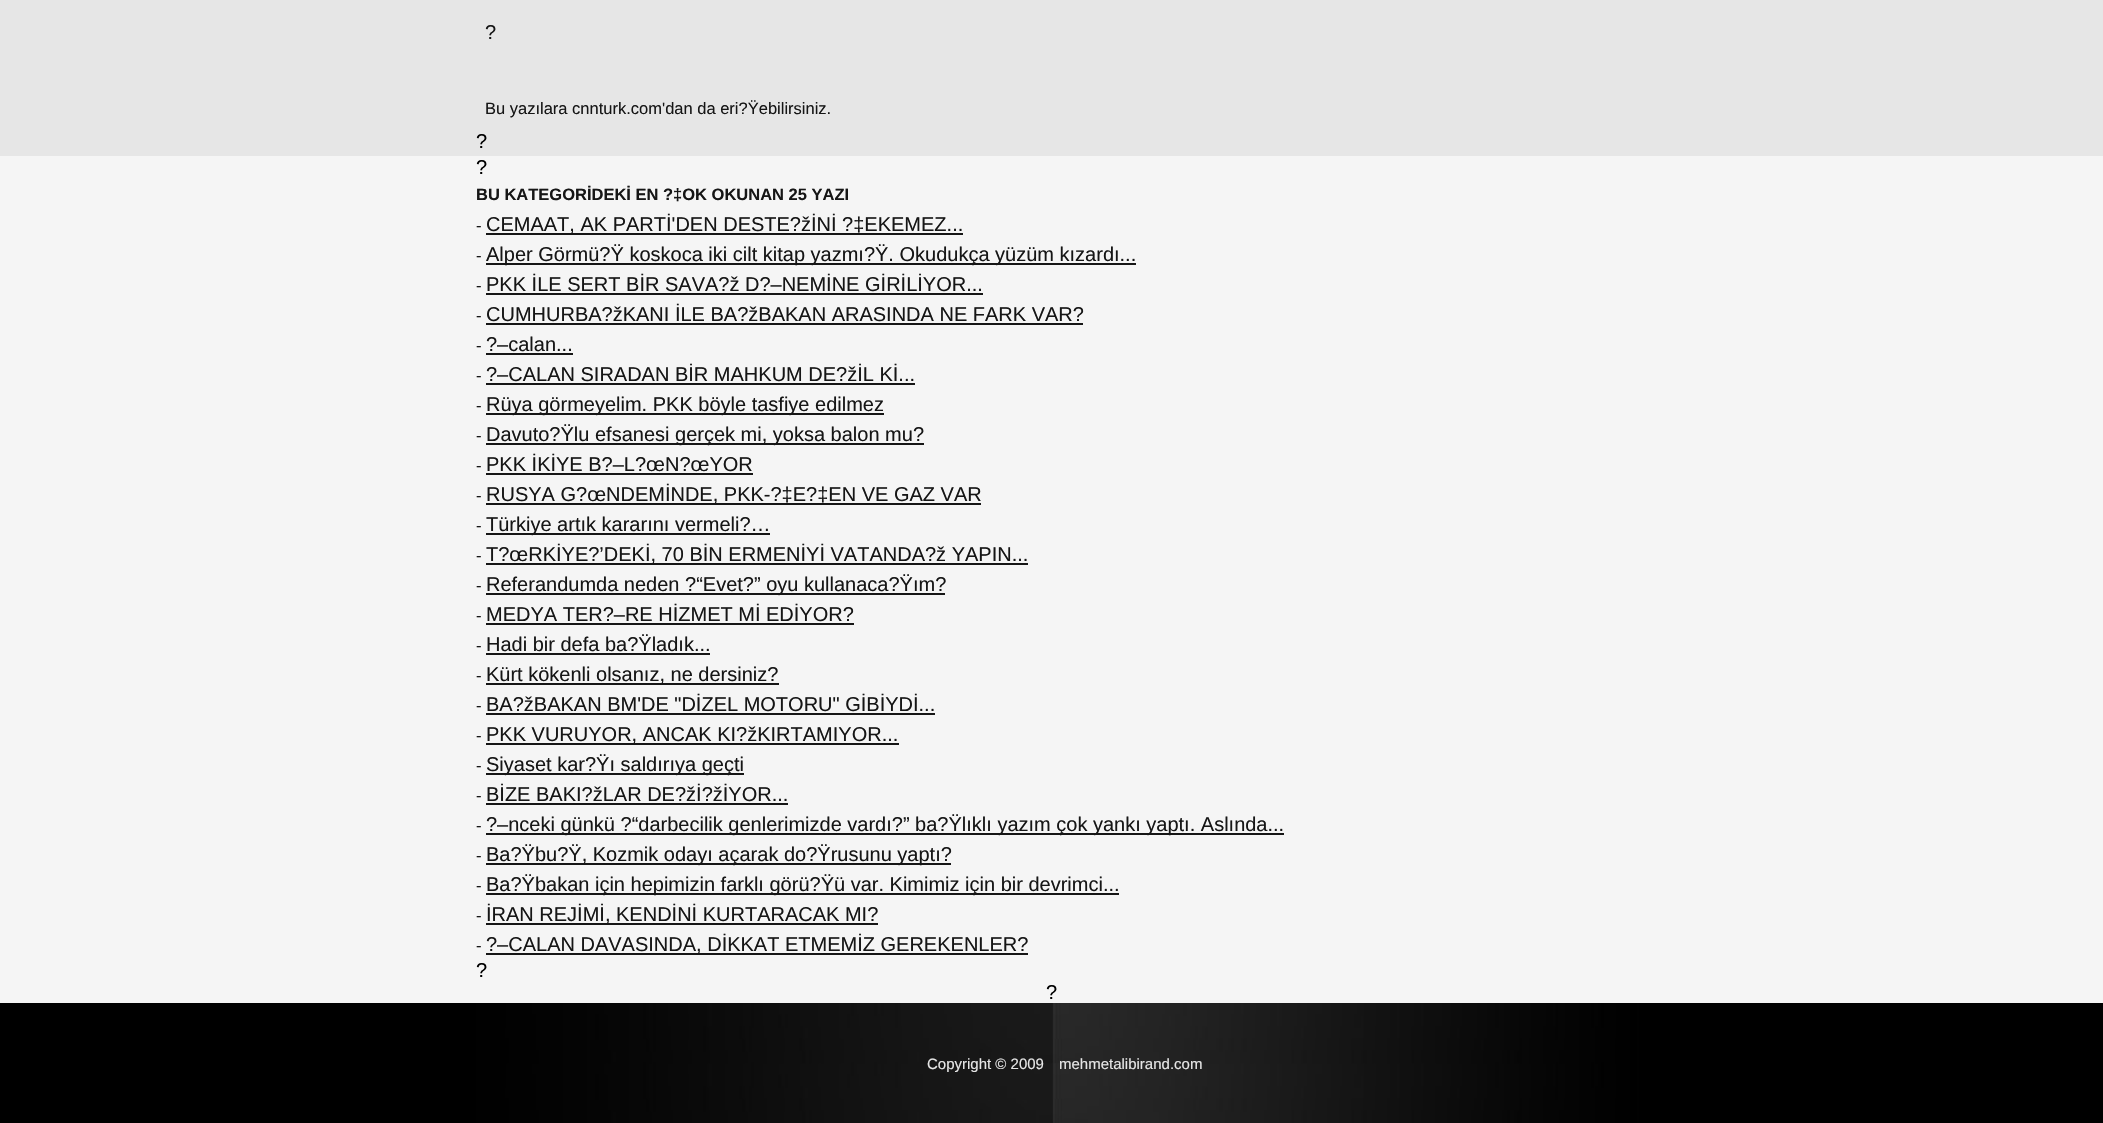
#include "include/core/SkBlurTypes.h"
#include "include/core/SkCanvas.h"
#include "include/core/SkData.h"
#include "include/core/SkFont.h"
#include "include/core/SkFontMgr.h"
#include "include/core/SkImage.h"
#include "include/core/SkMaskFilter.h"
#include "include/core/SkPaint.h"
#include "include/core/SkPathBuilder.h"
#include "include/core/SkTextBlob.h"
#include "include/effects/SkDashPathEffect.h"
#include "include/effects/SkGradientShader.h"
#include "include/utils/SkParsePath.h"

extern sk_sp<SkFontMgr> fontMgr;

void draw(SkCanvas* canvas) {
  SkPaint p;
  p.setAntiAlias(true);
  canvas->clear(SkColorSetRGB(230, 230, 230));
  p.setColor(SkColorSetRGB(245, 245, 245));
  canvas->drawRect(SkRect::MakeLTRB(0, 156, 2103, 1003), p);
  p.setColor(SkColorSetRGB(22, 22, 22));
  canvas->drawRect(SkRect::MakeLTRB(486, 233, 963, 235), p);
  canvas->drawRect(SkRect::MakeLTRB(486, 263, 1136, 265), p);
  canvas->drawRect(SkRect::MakeLTRB(486, 293, 983, 295), p);
  canvas->drawRect(SkRect::MakeLTRB(486, 323, 1083, 325), p);
  canvas->drawRect(SkRect::MakeLTRB(486, 353, 573, 355), p);
  canvas->drawRect(SkRect::MakeLTRB(486, 383, 915, 385), p);
  canvas->drawRect(SkRect::MakeLTRB(486, 413, 884, 415), p);
  canvas->drawRect(SkRect::MakeLTRB(486, 443, 924, 445), p);
  canvas->drawRect(SkRect::MakeLTRB(486, 473, 753, 475), p);
  canvas->drawRect(SkRect::MakeLTRB(486, 503, 981, 505), p);
  canvas->drawRect(SkRect::MakeLTRB(486, 533, 770, 535), p);
  canvas->drawRect(SkRect::MakeLTRB(486, 563, 1028, 565), p);
  canvas->drawRect(SkRect::MakeLTRB(486, 593, 945, 595), p);
  canvas->drawRect(SkRect::MakeLTRB(486, 623, 854, 625), p);
  canvas->drawRect(SkRect::MakeLTRB(486, 653, 710, 655), p);
  canvas->drawRect(SkRect::MakeLTRB(486, 683, 779, 685), p);
  canvas->drawRect(SkRect::MakeLTRB(486, 713, 935, 715), p);
  canvas->drawRect(SkRect::MakeLTRB(486, 743, 899, 745), p);
  canvas->drawRect(SkRect::MakeLTRB(486, 773, 744, 775), p);
  canvas->drawRect(SkRect::MakeLTRB(486, 803, 788, 805), p);
  canvas->drawRect(SkRect::MakeLTRB(486, 833, 1284, 835), p);
  canvas->drawRect(SkRect::MakeLTRB(486, 863, 951, 865), p);
  canvas->drawRect(SkRect::MakeLTRB(486, 893, 1119, 895), p);
  canvas->drawRect(SkRect::MakeLTRB(486, 923, 878, 925), p);
  canvas->drawRect(SkRect::MakeLTRB(486, 953, 1028, 955), p);
  canvas->drawImageRect(SkImages::DeferredFromEncodedData(SkData::MakeFromFileName("images/1.png")), SkRect::MakeLTRB(0, 1003, 2103, 1123), SkSamplingOptions());
  SkFont font1(fontMgr->matchFamilyStyle("Liberation Sans", SkFontStyle::Normal()), 20);
  font1.setSubpixel(true);
  canvas->drawString("?", 485, 39, font1, p);
  SkFont font2(fontMgr->matchFamilyStyle("Liberation Sans", SkFontStyle::Normal()), 16.5f);
  font2.setSubpixel(true);
  canvas->drawString("Bu yazılara cnnturk.com'dan da eri?Ÿebilirsiniz.", 485, 114, font2, p);
  p.setColor(SK_ColorBLACK);
  canvas->drawString("?", 476, 148, font1, p);
  canvas->drawString("?", 476, 174, font1, p);
  SkFont font3(fontMgr->matchFamilyStyle("Liberation Sans", SkFontStyle::Bold()), 16.5f);
  font3.setSubpixel(true);
  p.setColor(SkColorSetRGB(22, 22, 22));
  canvas->drawString("BU KATEGORİDEKİ EN ?‡OK OKUNAN 25 YAZI", 476, 200, font3, p);
  canvas->drawString("-", 476, 231, font2, p);
  canvas->drawString("CEMAAT, AK PARTİ'DEN DESTE?žİNİ ?‡EKEMEZ...", 486, 231, font1, p);
  canvas->drawString("-", 476, 261, font2, p);
  canvas->drawString("Alper Görmü?Ÿ koskoca iki cilt kitap yazmı?Ÿ. Okudukça yüzüm kızardı...", 486, 261, font1, p);
  canvas->drawString("-", 476, 291, font2, p);
  canvas->drawString("PKK İLE SERT BİR SAVA?ž D?–NEMİNE GİRİLİYOR...", 486, 291, font1, p);
  canvas->drawString("-", 476, 321, font2, p);
  canvas->drawString("CUMHURBA?žKANI İLE BA?žBAKAN ARASINDA NE FARK VAR?", 486, 321, font1, p);
  canvas->drawString("-", 476, 351, font2, p);
  canvas->drawString("?–calan...", 486, 351, font1, p);
  canvas->drawString("-", 476, 381, font2, p);
  canvas->drawString("?–CALAN SIRADAN BİR MAHKUM DE?žİL Kİ...", 486, 381, font1, p);
  canvas->drawString("-", 476, 411, font2, p);
  canvas->drawString("Rüya görmeyelim. PKK böyle tasfiye edilmez", 486, 411, font1, p);
  canvas->drawString("-", 476, 441, font2, p);
  canvas->drawString("Davuto?Ÿlu efsanesi gerçek mi, yoksa balon mu?", 486, 441, font1, p);
  canvas->drawString("-", 476, 471, font2, p);
  canvas->drawString("PKK İKİYE B?–L?œN?œYOR", 486, 471, font1, p);
  canvas->drawString("-", 476, 501, font2, p);
  canvas->drawString("RUSYA G?œNDEMİNDE, PKK-?‡E?‡EN VE GAZ VAR", 486, 501, font1, p);
  canvas->drawString("-", 476, 531, font2, p);
  canvas->drawString("Türkiye artık kararını vermeli?…", 486, 531, font1, p);
  canvas->drawString("-", 476, 561, font2, p);
  canvas->drawString("T?œRKİYE?’DEKİ, 70 BİN ERMENİYİ VATANDA?ž YAPIN...", 486, 561, font1, p);
  canvas->drawString("-", 476, 591, font2, p);
  canvas->drawString("Referandumda neden ?“Evet?” oyu kullanaca?Ÿım?", 486, 591, font1, p);
  canvas->drawString("-", 476, 621, font2, p);
  canvas->drawString("MEDYA TER?–RE HİZMET Mİ EDİYOR?", 486, 621, font1, p);
  canvas->drawString("-", 476, 651, font2, p);
  canvas->drawString("Hadi bir defa ba?Ÿladık...", 486, 651, font1, p);
  canvas->drawString("-", 476, 681, font2, p);
  canvas->drawString("Kürt kökenli olsanız, ne dersiniz?", 486, 681, font1, p);
  canvas->drawString("-", 476, 711, font2, p);
  canvas->drawString("BA?žBAKAN BM'DE \"DİZEL MOTORU\" GİBİYDİ...", 486, 711, font1, p);
  canvas->drawString("-", 476, 741, font2, p);
  canvas->drawString("PKK VURUYOR, ANCAK KI?žKIRTAMIYOR...", 486, 741, font1, p);
  canvas->drawString("-", 476, 771, font2, p);
  canvas->drawString("Siyaset kar?Ÿı saldırıya geçti", 486, 771, font1, p);
  canvas->drawString("-", 476, 801, font2, p);
  canvas->drawString("BİZE BAKI?žLAR DE?žİ?žİYOR...", 486, 801, font1, p);
  canvas->drawString("-", 476, 831, font2, p);
  canvas->drawString("?–nceki günkü ?“darbecilik genlerimizde vardı?” ba?Ÿlıklı yazım çok yankı yaptı. Aslında...", 486, 831, font1, p);
  canvas->drawString("-", 476, 861, font2, p);
  canvas->drawString("Ba?Ÿbu?Ÿ, Kozmik odayı açarak do?Ÿrusunu yaptı?", 486, 861, font1, p);
  canvas->drawString("-", 476, 891, font2, p);
  canvas->drawString("Ba?Ÿbakan için hepimizin farklı görü?Ÿü var. Kimimiz için bir devrimci...", 486, 891, font1, p);
  canvas->drawString("-", 476, 921, font2, p);
  canvas->drawString("İRAN REJİMİ, KENDİNİ KURTARACAK MI?", 486, 921, font1, p);
  canvas->drawString("-", 476, 951, font2, p);
  canvas->drawString("?–CALAN DAVASINDA, DİKKAT ETMEMİZ GEREKENLER?", 486, 951, font1, p);
  p.setColor(SK_ColorBLACK);
  canvas->drawString("?", 476, 977, font1, p);
  canvas->drawString("?", 1046, 999, font1, p);
  SkFont font4(fontMgr->matchFamilyStyle("Liberation Sans", SkFontStyle::Normal()), 15);
  font4.setSubpixel(true);
  p.setColor(SkColorSetRGB(230, 230, 230));
  canvas->drawString("Copyright © 2009", 927, 1069, font4, p);
  canvas->drawString("mehmetalibirand.com", 1059, 1069, font4, p);
}
